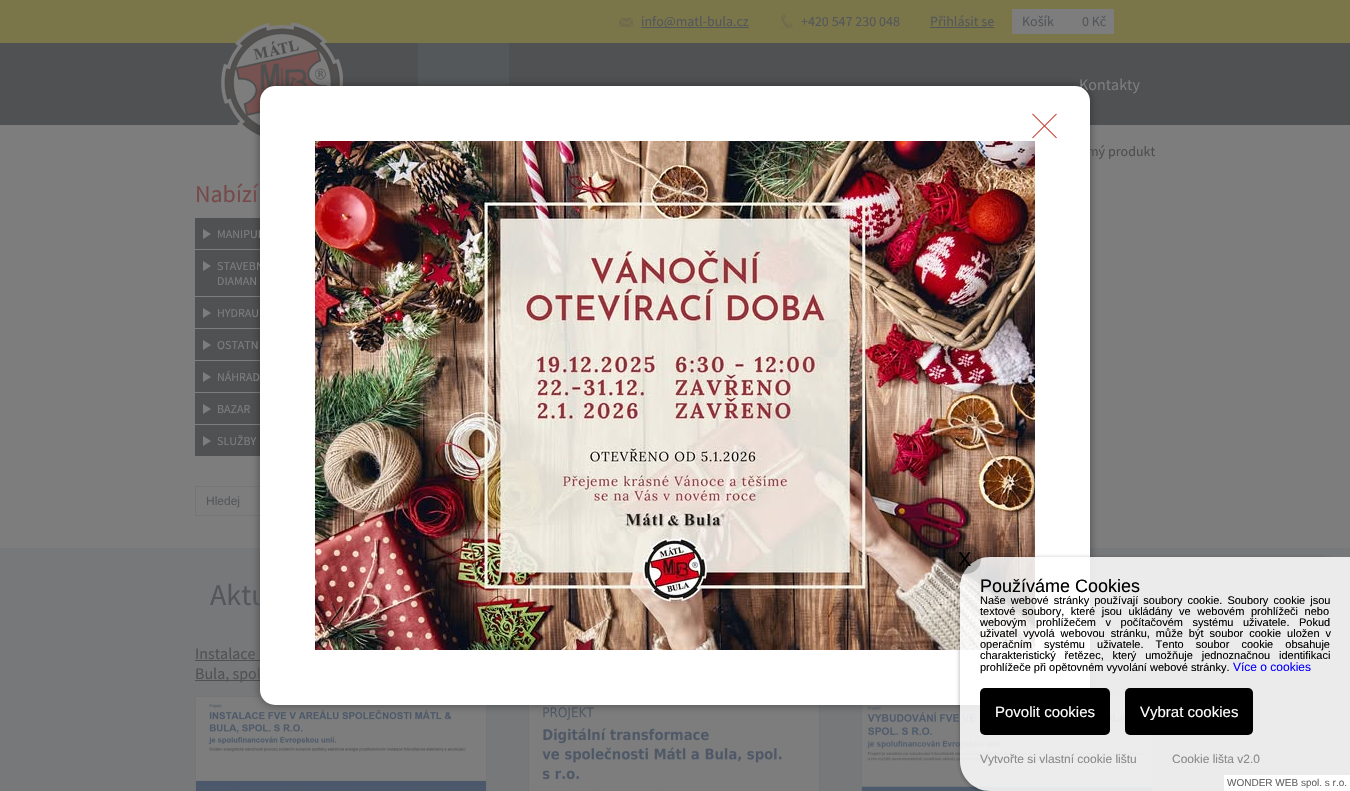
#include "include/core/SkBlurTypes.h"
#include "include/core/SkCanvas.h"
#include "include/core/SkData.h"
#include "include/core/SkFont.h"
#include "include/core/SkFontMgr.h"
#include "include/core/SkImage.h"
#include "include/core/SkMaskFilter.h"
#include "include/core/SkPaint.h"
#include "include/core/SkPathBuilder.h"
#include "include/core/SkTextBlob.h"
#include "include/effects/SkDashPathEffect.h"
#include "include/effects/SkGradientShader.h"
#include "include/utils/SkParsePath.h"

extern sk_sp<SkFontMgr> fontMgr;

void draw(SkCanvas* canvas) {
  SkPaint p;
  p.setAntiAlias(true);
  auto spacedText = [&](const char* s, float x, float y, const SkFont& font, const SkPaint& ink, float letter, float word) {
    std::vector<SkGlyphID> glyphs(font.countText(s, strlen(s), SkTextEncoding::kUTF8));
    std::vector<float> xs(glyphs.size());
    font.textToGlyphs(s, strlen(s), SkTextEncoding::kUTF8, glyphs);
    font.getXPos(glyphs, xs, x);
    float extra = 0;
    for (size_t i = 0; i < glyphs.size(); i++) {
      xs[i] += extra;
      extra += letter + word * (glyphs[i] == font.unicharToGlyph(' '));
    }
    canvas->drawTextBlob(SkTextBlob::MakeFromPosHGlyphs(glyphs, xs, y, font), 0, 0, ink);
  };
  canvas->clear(SkColorSetRGB(125, 125, 125));
  p.setColor(SkColorSetRGB(123, 117, 74));
  canvas->drawRect(SkRect::MakeLTRB(0, 0, 1350, 43), p);
  canvas->drawImageRect(SkImages::DeferredFromEncodedData(SkData::MakeFromFileName("images/1.png")), SkRect::MakeLTRB(619, 18, 633, 27), SkSamplingOptions());
  p.setColor(SkColorSetRGB(83, 87, 90));
  canvas->drawRect(SkRect::MakeLTRB(641, 27, 749, 28), p);
  canvas->drawImageRect(SkImages::DeferredFromEncodedData(SkData::MakeFromFileName("images/2.png")), SkRect::MakeLTRB(779, 14, 793, 28), SkSamplingOptions());
  canvas->drawRect(SkRect::MakeLTRB(930, 27, 994, 28), p);
  p.setColor(SkColorSetRGB(125, 125, 125));
  canvas->drawRect(SkRect::MakeLTRB(1012, 9, 1114, 34), p);
  p.setColor(SkColorSetRGB(79, 81, 83));
  canvas->drawRect(SkRect::MakeLTRB(0, 43, 1350, 125), p);
  canvas->drawImageRect(SkImages::DeferredFromEncodedData(SkData::MakeFromFileName("images/3.png")), SkRect::MakeLTRB(221, 22, 343, 140), SkSamplingOptions());
  p.setColor(SkColorSetRGB(85, 88, 90));
  canvas->drawRect(SkRect::MakeLTRB(418, 43, 509, 86), p);
  p.setColor(SkColorSetRGB(79, 81, 83));
  canvas->drawRect(SkRect::MakeLTRB(195, 218, 260, 249), p);
  canvas->drawImageRect(SkImages::DeferredFromEncodedData(SkData::MakeFromFileName("images/4.png")), SkRect::MakeLTRB(203, 229, 211, 239), SkSamplingOptions());
  canvas->drawRect(SkRect::MakeLTRB(195, 250, 260, 296), p);
  canvas->drawImageRect(SkImages::DeferredFromEncodedData(SkData::MakeFromFileName("images/4.png")), SkRect::MakeLTRB(203, 261, 211, 271), SkSamplingOptions());
  canvas->drawRect(SkRect::MakeLTRB(195, 297, 260, 328), p);
  canvas->drawImageRect(SkImages::DeferredFromEncodedData(SkData::MakeFromFileName("images/4.png")), SkRect::MakeLTRB(203, 308, 211, 318), SkSamplingOptions());
  canvas->drawRect(SkRect::MakeLTRB(195, 329, 260, 360), p);
  canvas->drawImageRect(SkImages::DeferredFromEncodedData(SkData::MakeFromFileName("images/4.png")), SkRect::MakeLTRB(203, 340, 211, 350), SkSamplingOptions());
  canvas->drawRect(SkRect::MakeLTRB(195, 361, 260, 392), p);
  canvas->drawImageRect(SkImages::DeferredFromEncodedData(SkData::MakeFromFileName("images/4.png")), SkRect::MakeLTRB(203, 372, 211, 382), SkSamplingOptions());
  canvas->drawRect(SkRect::MakeLTRB(195, 393, 260, 424), p);
  canvas->drawImageRect(SkImages::DeferredFromEncodedData(SkData::MakeFromFileName("images/4.png")), SkRect::MakeLTRB(203, 404, 211, 414), SkSamplingOptions());
  canvas->drawRect(SkRect::MakeLTRB(195, 425, 260, 456), p);
  canvas->drawImageRect(SkImages::DeferredFromEncodedData(SkData::MakeFromFileName("images/4.png")), SkRect::MakeLTRB(203, 436, 211, 446), SkSamplingOptions());
  p.setStyle(SkPaint::kStroke_Style);
  p.setStrokeWidth(1);
  p.setColor(SkColorSetRGB(116, 117, 117));
  canvas->drawRect(SkRect::MakeLTRB(195.5f, 486.5f, 370.5f, 515.5f), p);
  p.setStyle(SkPaint::kFill_Style);
  p.setColor(SkColorSetRGB(118, 120, 122));
  canvas->drawRect(SkRect::MakeLTRB(0, 548, 1350, 791), p);
  p.setColor(SkColorSetRGB(79, 81, 83));
  canvas->drawRect(SkRect::MakeLTRB(195, 660, 260, 661), p);
  canvas->drawRect(SkRect::MakeLTRB(195, 680, 260, 681), p);
  p.setStyle(SkPaint::kStroke_Style);
  p.setColor(SkColorSetRGB(117, 117, 118));
  canvas->drawRect(SkRect::MakeLTRB(195.5f, 696.5f, 486.5f, 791.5f), p);
  canvas->drawImageRect(SkImages::DeferredFromEncodedData(SkData::MakeFromFileName("images/5.png")), SkRect::MakeLTRB(196, 697, 486, 791), SkSamplingOptions());
  canvas->drawRect(SkRect::MakeLTRB(528.5f, 696.5f, 819.5f, 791.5f), p);
  canvas->drawImageRect(SkImages::DeferredFromEncodedData(SkData::MakeFromFileName("images/6.png")), SkRect::MakeLTRB(529, 705, 819, 791), SkSamplingOptions());
  p.setStyle(SkPaint::kFill_Style);
  p.setColor(SkColorSetRGB(79, 81, 83));
  canvas->drawRect(SkRect::MakeLTRB(1090, 660, 1149, 661), p);
  p.setStyle(SkPaint::kStroke_Style);
  p.setColor(SkColorSetRGB(117, 117, 118));
  canvas->drawRect(SkRect::MakeLTRB(861.5f, 696.5f, 1152.5f, 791.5f), p);
  canvas->drawImageRect(SkImages::DeferredFromEncodedData(SkData::MakeFromFileName("images/7.png")), SkRect::MakeLTRB(862, 697, 1152, 791), SkSamplingOptions());
  p.setStyle(SkPaint::kFill_Style);
  p.setColor(SkColorSetARGB(102, 0, 0, 0));
  p.setMaskFilter(SkMaskFilter::MakeBlur(kNormal_SkBlurStyle, 5));
  canvas->drawRoundRect(SkRect::MakeLTRB(260, 86, 1090, 705), 15, 15, p);
  p.setMaskFilter(nullptr);
  SkFont font1(fontMgr->matchFamilyStyle("Source Sans Pro", SkFontStyle::Normal()), 14);
  font1.setSubpixel(true);
  p.setColor(SkColorSetRGB(83, 87, 90));
  canvas->drawString("info@matl-bula.cz", 641, 26, font1, p);
  canvas->drawString("+420 547 230 048", 801, 26, font1, p);
  canvas->drawString("Přihlásit se", 930, 26, font1, p);
  canvas->drawString("Košík", 1022, 26, font1, p);
  canvas->drawString("0 Kč", 1082, 26, font1, p);
  SkFont font2(fontMgr->matchFamilyStyle("Source Sans Pro", SkFontStyle::Normal()), 16);
  font2.setSubpixel(true);
  p.setColor(SkColorSetRGB(125, 125, 125));
  canvas->drawString("Kontakty", 1079, 90, font2, p);
  p.setColor(SkColorSetRGB(77, 77, 77));
  canvas->drawString("mý produkt", 1087, 156, font1, p);
  SkFont font3(fontMgr->matchFamilyStyle("Source Sans Pro", SkFontStyle::Normal()), 24);
  font3.setSubpixel(true);
  p.setColor(SkColorSetRGB(118, 74, 74));
  canvas->drawString("Nabízí", 195, 202, font3, p);
  SkFont font4(fontMgr->matchFamilyStyle("Source Sans Pro", SkFontStyle::Normal()), 12);
  font4.setSubpixel(true);
  p.setColor(SkColorSetRGB(125, 125, 125));
  canvas->drawString("MANIPUL", 217, 238, font4, p);
  canvas->drawString("STAVEBN", 217, 270, font4, p);
  canvas->drawString("DIAMAN", 217, 285, font4, p);
  canvas->drawString("HYDRAU", 217, 317, font4, p);
  canvas->drawString("OSTATN", 217, 349, font4, p);
  canvas->drawString("NÁHRAD", 217, 381, font4, p);
  canvas->drawString("BAZAR", 217, 413, font4, p);
  canvas->drawString("SLUŽBY", 217, 445, font4, p);
  SkFont font5(fontMgr->matchFamilyStyle("Liberation Sans", SkFontStyle::Normal()), 12);
  font5.setSubpixel(true);
  p.setColor(SkColorSetRGB(83, 87, 90));
  canvas->drawString("Hledej", 206, 505, font5, p);
  SkFont font6(fontMgr->matchFamilyStyle("Source Sans Pro", SkFontStyle::Normal()), 30);
  font6.setSubpixel(true);
  canvas->drawString("Aktu", 210, 605, font6, p);
  p.setColor(SkColorSetRGB(79, 81, 83));
  canvas->drawString("Instalace", 195, 659, font2, p);
  canvas->drawString("Bula, spol", 195, 679, font2, p);
  p.setColor(SK_ColorWHITE);
  canvas->drawRoundRect(SkRect::MakeLTRB(260, 86, 1090, 705), 15, 15, p);
  canvas->drawImageRect(SkImages::DeferredFromEncodedData(SkData::MakeFromFileName("images/8.png")), SkRect::MakeLTRB(1032, 113, 1057, 139), SkSamplingOptions());
  canvas->drawImageRect(SkImages::DeferredFromEncodedData(SkData::MakeFromFileName("images/9.png")), SkRect::MakeLTRB(315, 141, 1035, 650), SkSamplingOptions());
  canvas->save();
  canvas->clipPath(SkPathBuilder(SkPathFillType::kEvenOdd).moveTo(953, 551).lineTo(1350, 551).lineTo(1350, 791).lineTo(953, 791).close().moveTo(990, 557).lineTo(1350, 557).lineTo(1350, 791).lineTo(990, 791).cubicTo(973.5f, 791, 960, 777.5f, 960, 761).lineTo(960, 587).cubicTo(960, 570.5f, 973.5f, 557, 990, 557).close().detach(), true);
  p.setColor(SkColorSetARGB(84, 0, 0, 0));
  p.setMaskFilter(SkMaskFilter::MakeBlur(kNormal_SkBlurStyle, 2));
  canvas->drawRoundRect(SkRect::MakeLTRB(960, 558, 1350, 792), 30, 30, p);
  p.setMaskFilter(nullptr);
  canvas->restore();
  p.setColor(SkColorSetARGB(217, 255, 255, 255));
  canvas->drawPath(SkPathBuilder().moveTo(990, 557).lineTo(1350, 557).lineTo(1350, 791).lineTo(990, 791).cubicTo(973.5f, 791, 960, 777.5f, 960, 761).lineTo(960, 587).cubicTo(960, 570.5f, 973.5f, 557, 990, 557).close().detach(), p);
  p.setColor(SkColorSetARGB(51, 0, 0, 0));
  canvas->drawRoundRect(SkRect::MakeLTRB(947, 544, 981, 574), 15, 15, p);
  SkFont font7(fontMgr->matchFamilyStyle("Liberation Sans", SkFontStyle::Normal()), 20);
  font7.setSubpixel(true);
  p.setColor(SK_ColorBLACK);
  canvas->drawString("X", 958, 566, font7, p);
  SkFont font8(fontMgr->matchFamilyStyle("Liberation Sans", SkFontStyle::Normal()), 18);
  font8.setSubpixel(true);
  canvas->drawString("Používáme Cookies", 980, 592, font8, p);
  SkFont font9(fontMgr->matchFamilyStyle("Liberation Sans", SkFontStyle::Normal()), 11);
  font9.setSubpixel(true);
  spacedText("Naše webové stránky používají soubory cookie. Soubory cookie jsou", 980, 604, font9, p, 0, 2);
  spacedText("textové soubory, které jsou ukládány ve webovém prohlížeči nebo", 980, 615, font9, p, 0, 3.5f);
  spacedText("webovým prohlížečem v počítačovém systému uživatele. Pokud", 980, 626, font9, p, 0, 6.5f);
  spacedText("uživatel vyvolá webovou stránku, může být soubor cookie uložen v", 980, 637, font9, p, 0, 3);
  spacedText("operačním systému uživatele. Tento soubor cookie obsahuje", 980, 648, font9, p, 0, 9);
  spacedText("charakteristický řetězec, který umožňuje jednoznačnou identifikaci", 980, 659, font9, p, 0, 5.75f);
  canvas->drawString("prohlížeče při opětovném vyvolání webové stránky.", 980, 671, font9, p);
  p.setColor(SkColorSetRGB(4, 0, 255));
  canvas->drawString("Více o cookies", 1233, 671, font5, p);
  p.setColor(SK_ColorBLACK);
  canvas->drawRoundRect(SkRect::MakeLTRB(980, 688, 1110, 735), 5, 5, p);
  SkFont font10(fontMgr->matchFamilyStyle("Liberation Sans", SkFontStyle::Normal()), 15);
  font10.setSubpixel(true);
  p.setColor(SK_ColorWHITE);
  canvas->drawString("Povolit cookies", 995, 717, font10, p);
  p.setColor(SK_ColorBLACK);
  canvas->drawRoundRect(SkRect::MakeLTRB(1125, 688, 1253, 735), 5, 5, p);
  p.setColor(SK_ColorWHITE);
  canvas->drawString("Vybrat cookies", 1140, 717, font10, p);
  p.setColor(SkColorSetRGB(138, 138, 138));
  canvas->drawString("Vytvořte si vlastní cookie lištu", 980, 763, font5, p);
  canvas->drawString("Cookie lišta v2.0", 1172, 763, font5, p);
  p.setColor(SK_ColorWHITE);
  canvas->drawRect(SkRect::MakeLTRB(1224, 775, 1350, 791), p);
  SkFont font11(fontMgr->matchFamilyStyle("Liberation Sans", SkFontStyle::Normal()), 10);
  font11.setSubpixel(true);
  p.setColor(SkColorSetRGB(102, 102, 102));
  canvas->drawString("WONDER WEB spol. s r.o.", 1227, 786, font11, p);
}
